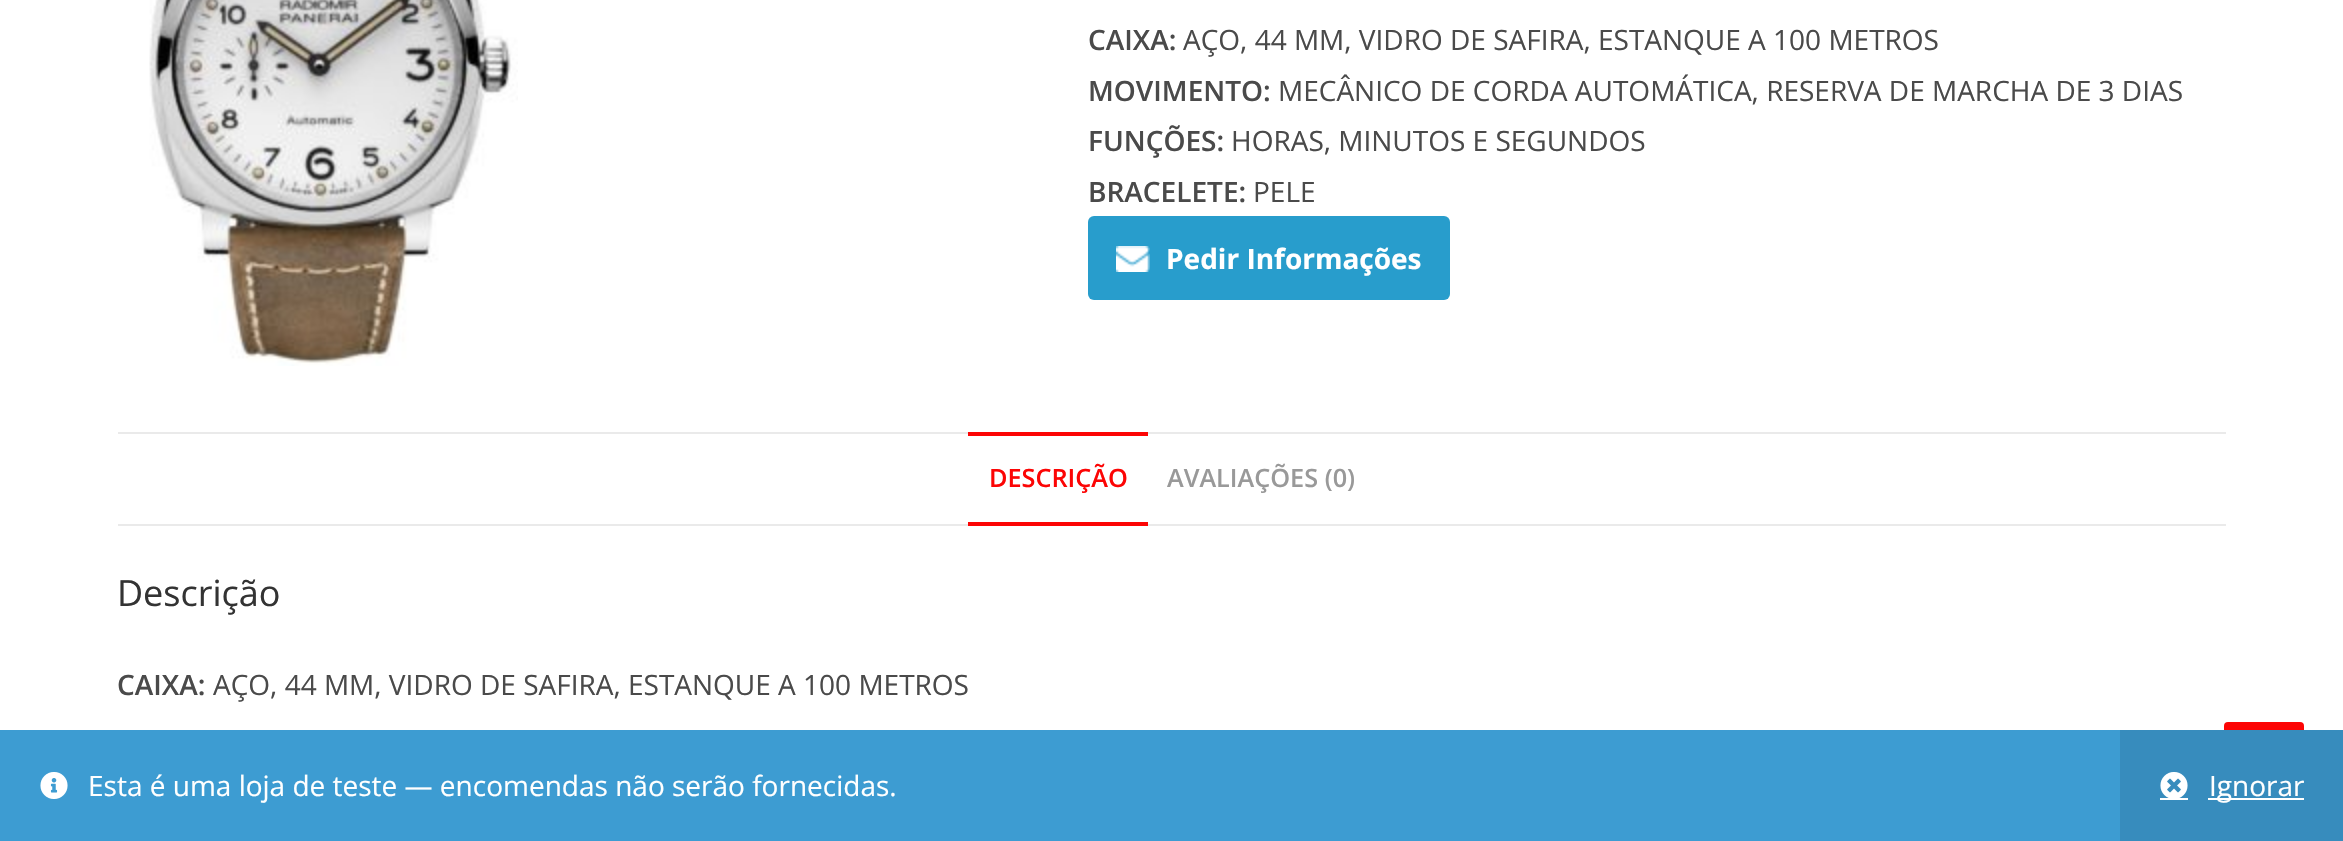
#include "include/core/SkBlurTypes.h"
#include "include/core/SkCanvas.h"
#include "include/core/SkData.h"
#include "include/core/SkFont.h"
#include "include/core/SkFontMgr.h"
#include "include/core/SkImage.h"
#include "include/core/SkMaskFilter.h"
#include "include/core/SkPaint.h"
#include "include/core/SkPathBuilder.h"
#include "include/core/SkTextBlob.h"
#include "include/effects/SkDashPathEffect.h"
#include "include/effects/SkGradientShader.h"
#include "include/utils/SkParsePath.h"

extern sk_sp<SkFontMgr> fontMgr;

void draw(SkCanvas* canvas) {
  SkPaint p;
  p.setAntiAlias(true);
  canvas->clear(SK_ColorWHITE);
  canvas->drawImageRect(SkImages::DeferredFromEncodedData(SkData::MakeFromFileName("images/1.png")), SkRect::MakeLTRB(149, 0, 518, 366), SkSamplingOptions());
  p.setColor(SkColorSetRGB(40, 157, 204));
  canvas->drawRoundRect(SkRect::MakeLTRB(1088, 216, 1450, 300), 6, 6, p);
  canvas->drawImageRect(SkImages::DeferredFromEncodedData(SkData::MakeFromFileName("images/2.png")), SkRect::MakeLTRB(1116, 246, 1150, 272), SkSamplingOptions());
  p.setColor(SkColorSetRGB(234, 234, 234));
  canvas->drawRect(SkRect::MakeLTRB(118, 432, 2226, 434), p);
  canvas->drawRect(SkRect::MakeLTRB(118, 524, 2226, 526), p);
  p.setColor(SkColorSetRGB(252, 5, 5));
  canvas->drawRect(SkRect::MakeLTRB(968, 432, 1148, 436), p);
  canvas->drawRect(SkRect::MakeLTRB(968, 522, 1148, 526), p);
  canvas->drawRoundRect(SkRect::MakeLTRB(2224, 722, 2304, 802), 4, 4, p);
  p.setColor(SkColorSetRGB(61, 156, 210));
  canvas->drawRect(SkRect::MakeLTRB(0, 730, 2120, 841), p);
  canvas->drawImageRect(SkImages::DeferredFromEncodedData(SkData::MakeFromFileName("images/3.png")), SkRect::MakeLTRB(40, 772, 68, 799), SkSamplingOptions());
  p.setColor(SkColorSetRGB(55, 140, 189));
  canvas->drawRect(SkRect::MakeLTRB(2120, 730, 2343, 841), p);
  canvas->drawImageRect(SkImages::DeferredFromEncodedData(SkData::MakeFromFileName("images/4.png")), SkRect::MakeLTRB(2160, 772, 2188, 798), SkSamplingOptions());
  p.setColor(SK_ColorWHITE);
  canvas->drawRect(SkRect::MakeLTRB(2208, 798, 2304, 800), p);
  canvas->drawRect(SkRect::MakeLTRB(2160, 798, 2188, 800), p);
  SkFont font1(fontMgr->matchFamilyStyle("Open Sans", SkFontStyle(600, SkFontStyle::kNormal_Width, SkFontStyle::kUpright_Slant)), 28);
  font1.setSubpixel(true);
  p.setColor(SkColorSetRGB(74, 74, 74));
  canvas->drawString("CAIXA:", 1088, 50, font1, p);
  SkFont font2(fontMgr->matchFamilyStyle("Open Sans", SkFontStyle::Normal()), 28);
  font2.setSubpixel(true);
  canvas->drawString("AÇO, 44 MM, VIDRO DE SAFIRA, ESTANQUE A 100 METROS", 1183, 50, font2, p);
  canvas->drawString("MOVIMENTO:", 1088, 101, font1, p);
  canvas->drawString("MECÂNICO DE CORDA AUTOMÁTICA, RESERVA DE MARCHA DE 3 DIAS", 1278, 101, font2, p);
  canvas->drawString("FUNÇÕES:", 1088, 151, font1, p);
  canvas->drawString("HORAS, MINUTOS E SEGUNDOS", 1231, 151, font2, p);
  canvas->drawString("BRACELETE:", 1088, 202, font1, p);
  canvas->drawString("PELE", 1253, 202, font2, p);
  SkFont font3(fontMgr->matchFamilyStyle("Open Sans", SkFontStyle::Bold()), 28);
  font3.setSubpixel(true);
  p.setColor(SK_ColorWHITE);
  canvas->drawString("Pedir Informações", 1166, 269, font3, p);
  SkFont font4(fontMgr->matchFamilyStyle("Open Sans", SkFontStyle(600, SkFontStyle::kNormal_Width, SkFontStyle::kUpright_Slant)), 25.25f);
  font4.setSubpixel(true);
  p.setColor(SkColorSetRGB(252, 5, 5));
  canvas->drawString("DESCRIÇÃO", 989, 487, font4, p);
  p.setColor(SkColorSetRGB(153, 153, 153));
  canvas->drawString("AVALIAÇÕES (0)", 1167, 487, font4, p);
  SkFont font5(fontMgr->matchFamilyStyle("Open Sans", SkFontStyle::Normal()), 36);
  font5.setSubpixel(true);
  p.setColor(SkColorSetRGB(51, 51, 51));
  canvas->drawString("Descrição", 117, 606, font5, p);
  p.setColor(SkColorSetRGB(74, 74, 74));
  canvas->drawString("CAIXA:", 117, 695, font1, p);
  canvas->drawString("AÇO, 44 MM, VIDRO DE SAFIRA, ESTANQUE A 100 METROS", 213, 695, font2, p);
  p.setColor(SK_ColorWHITE);
  canvas->drawString("Esta é uma loja de teste — encomendas não serão fornecidas.", 88, 796, font2, p);
  canvas->drawString("Ignorar", 2209, 796, font2, p);
}
